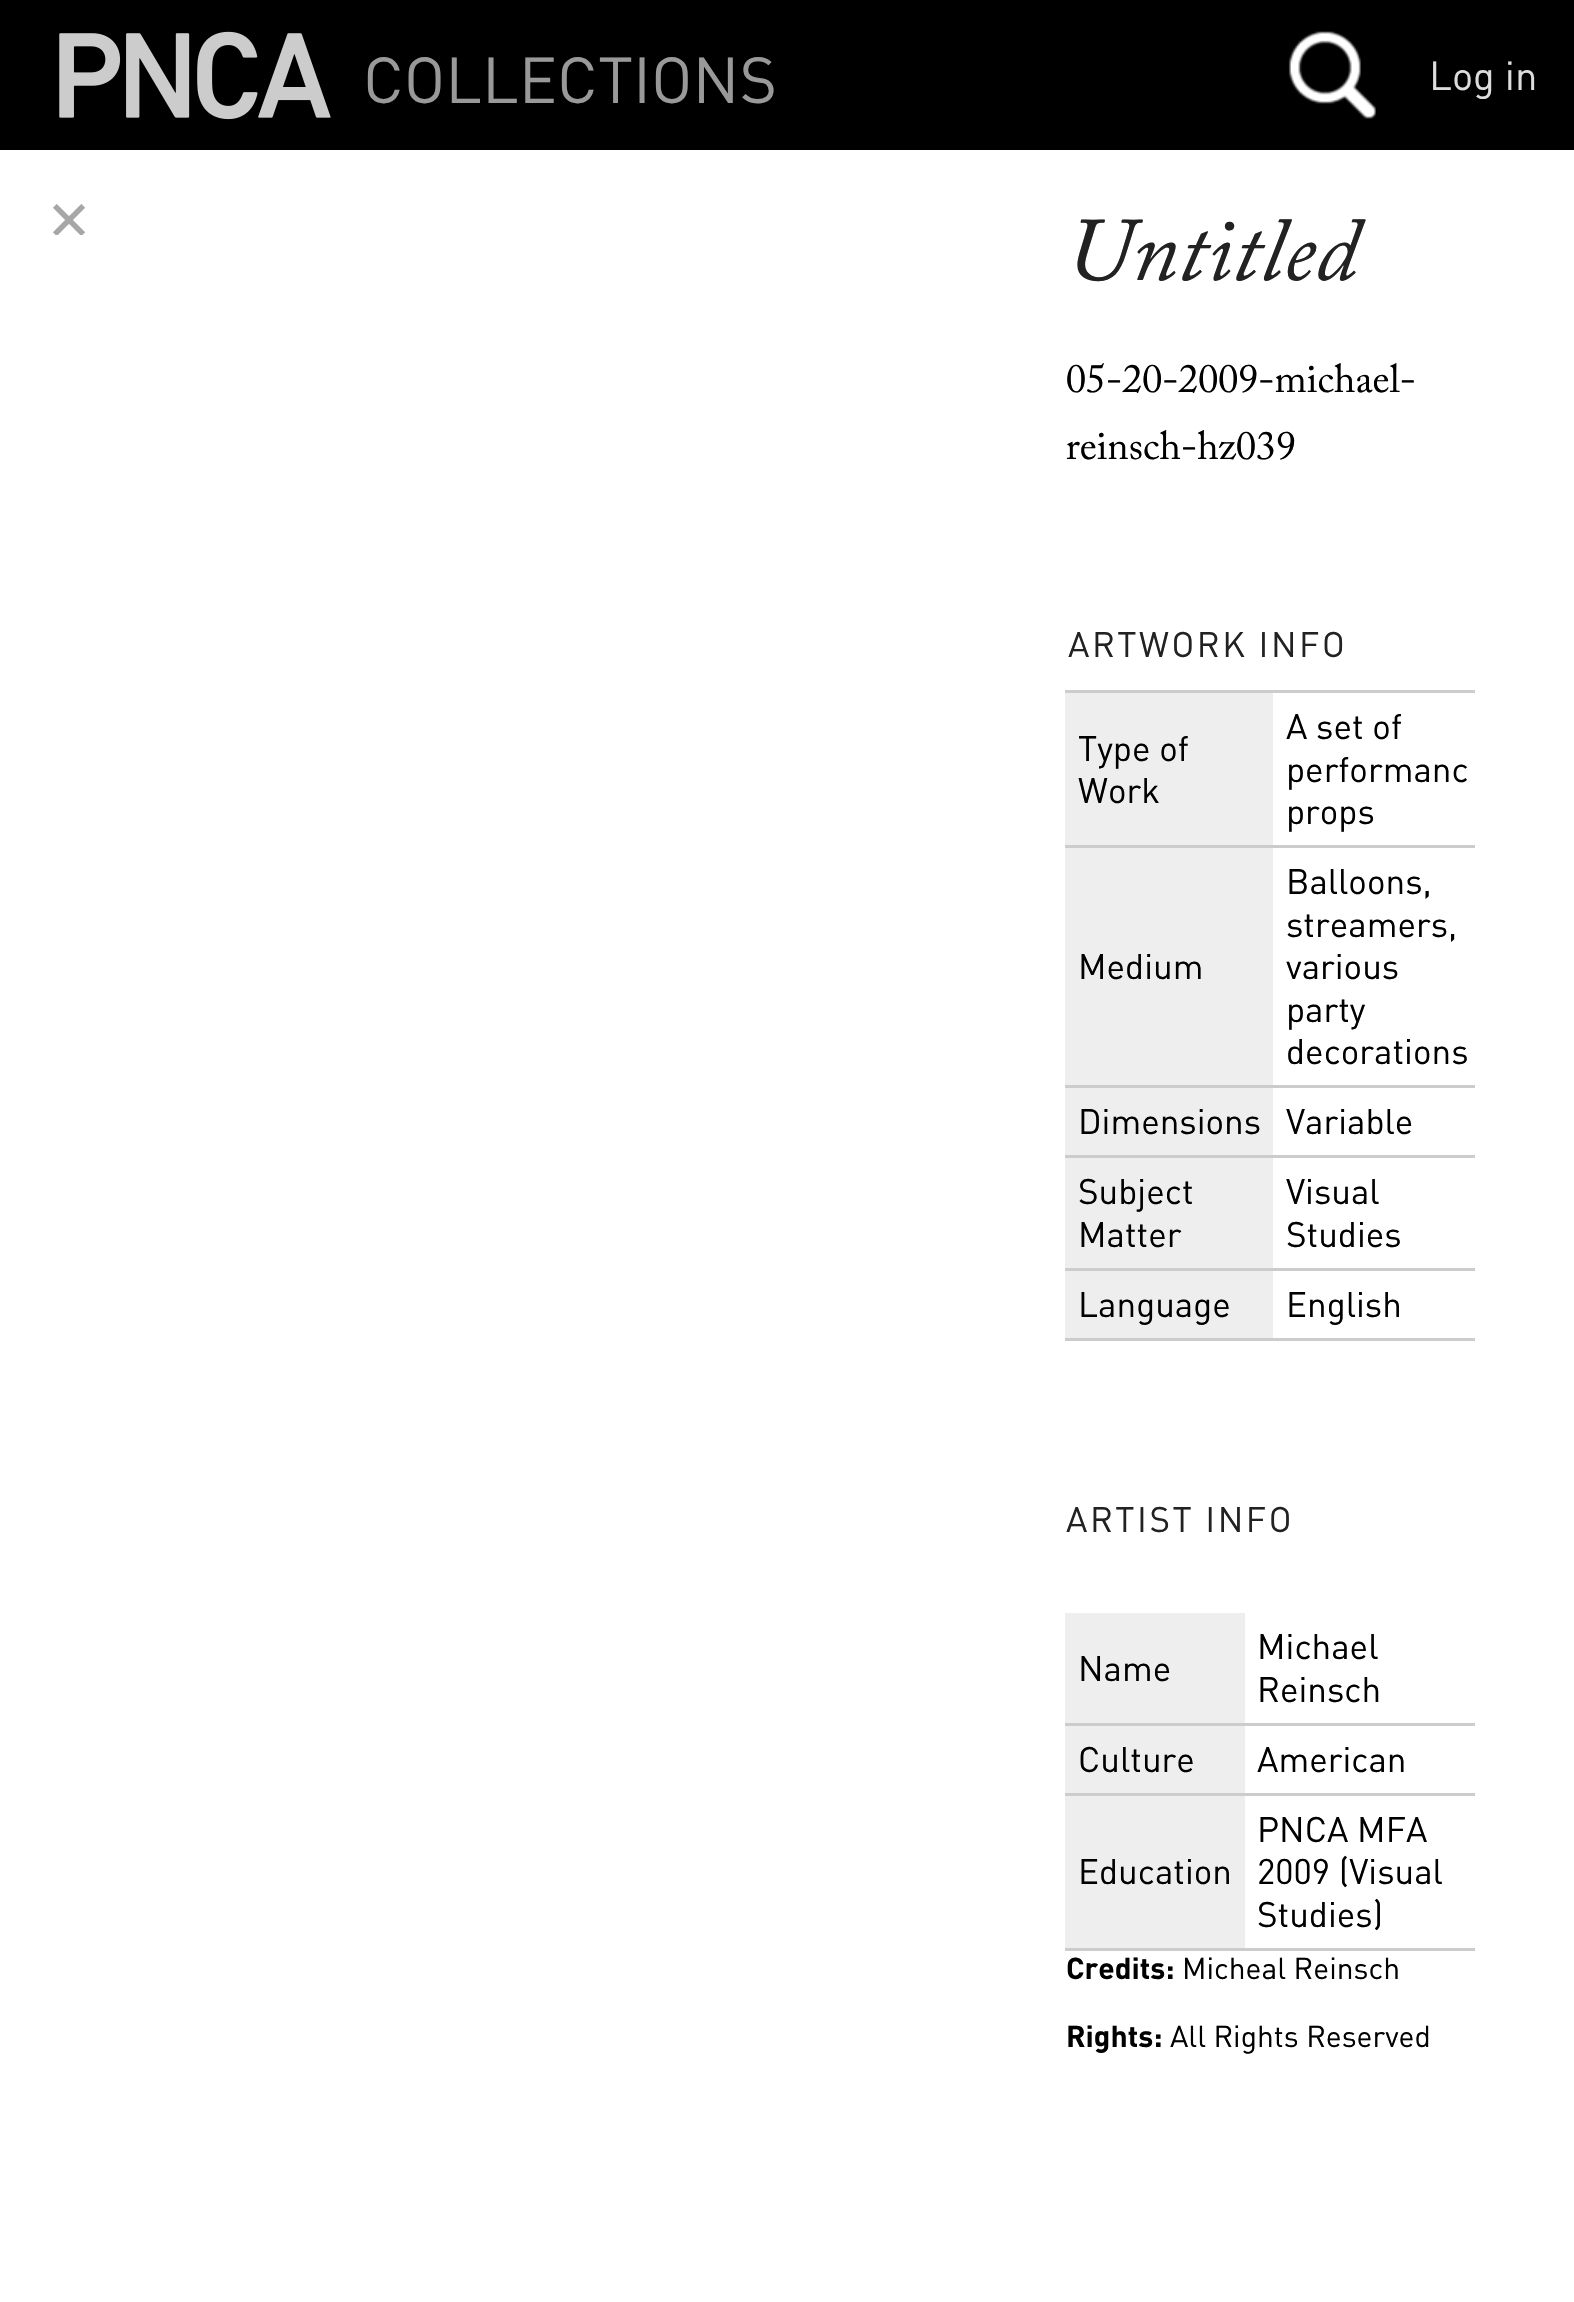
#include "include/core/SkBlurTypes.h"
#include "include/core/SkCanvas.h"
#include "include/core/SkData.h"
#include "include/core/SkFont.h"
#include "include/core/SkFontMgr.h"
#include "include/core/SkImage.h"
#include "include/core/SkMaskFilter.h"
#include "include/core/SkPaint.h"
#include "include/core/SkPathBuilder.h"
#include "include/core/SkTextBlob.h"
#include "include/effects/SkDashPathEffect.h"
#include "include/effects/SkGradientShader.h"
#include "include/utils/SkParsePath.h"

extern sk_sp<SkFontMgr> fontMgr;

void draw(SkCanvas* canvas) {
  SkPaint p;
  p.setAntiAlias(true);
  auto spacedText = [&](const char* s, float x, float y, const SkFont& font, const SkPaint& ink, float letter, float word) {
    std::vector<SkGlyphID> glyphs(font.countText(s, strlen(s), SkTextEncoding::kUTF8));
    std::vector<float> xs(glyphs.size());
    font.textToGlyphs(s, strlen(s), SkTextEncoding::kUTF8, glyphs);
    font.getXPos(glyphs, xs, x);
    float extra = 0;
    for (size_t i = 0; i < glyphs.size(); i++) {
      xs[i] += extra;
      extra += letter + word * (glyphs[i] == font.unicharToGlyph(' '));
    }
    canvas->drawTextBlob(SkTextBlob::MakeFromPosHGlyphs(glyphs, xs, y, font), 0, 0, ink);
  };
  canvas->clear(SK_ColorWHITE);
  p.setColor(SK_ColorBLACK);
  canvas->drawRect(SkRect::MakeLTRB(0, 0, 1574, 150), p);
  canvas->drawImageRect(SkImages::DeferredFromEncodedData(SkData::MakeFromFileName("images/1.png")), SkRect::MakeLTRB(59, 31, 331, 120), SkSamplingOptions());
  canvas->drawImageRect(SkImages::DeferredFromEncodedData(SkData::MakeFromFileName("images/2.png")), SkRect::MakeLTRB(1288, 31, 1376, 119), SkSamplingOptions());
  p.setColor(SkColorSetRGB(204, 204, 204));
  canvas->drawRect(SkRect::MakeLTRB(1065, 690, 1475, 693), p);
  p.setColor(SkColorSetRGB(238, 238, 238));
  canvas->drawRect(SkRect::MakeLTRB(1065, 693, 1273, 845), p);
  p.setColor(SkColorSetRGB(204, 204, 204));
  canvas->drawRect(SkRect::MakeLTRB(1065, 845, 1475, 848), p);
  p.setColor(SkColorSetRGB(238, 238, 238));
  canvas->drawRect(SkRect::MakeLTRB(1065, 848, 1273, 1085), p);
  p.setColor(SkColorSetRGB(204, 204, 204));
  canvas->drawRect(SkRect::MakeLTRB(1065, 1085, 1475, 1088), p);
  p.setColor(SkColorSetRGB(238, 238, 238));
  canvas->drawRect(SkRect::MakeLTRB(1065, 1088, 1273, 1155), p);
  p.setColor(SkColorSetRGB(204, 204, 204));
  canvas->drawRect(SkRect::MakeLTRB(1065, 1155, 1475, 1158), p);
  p.setColor(SkColorSetRGB(238, 238, 238));
  canvas->drawRect(SkRect::MakeLTRB(1065, 1158, 1273, 1268), p);
  p.setColor(SkColorSetRGB(204, 204, 204));
  canvas->drawRect(SkRect::MakeLTRB(1065, 1268, 1475, 1271), p);
  p.setColor(SkColorSetRGB(238, 238, 238));
  canvas->drawRect(SkRect::MakeLTRB(1065, 1271, 1273, 1338), p);
  p.setColor(SkColorSetRGB(204, 204, 204));
  canvas->drawRect(SkRect::MakeLTRB(1065, 1338, 1475, 1341), p);
  p.setColor(SkColorSetRGB(238, 238, 238));
  canvas->drawRect(SkRect::MakeLTRB(1065, 1613, 1245, 1723), p);
  p.setColor(SkColorSetRGB(204, 204, 204));
  canvas->drawRect(SkRect::MakeLTRB(1065, 1723, 1475, 1726), p);
  p.setColor(SkColorSetRGB(238, 238, 238));
  canvas->drawRect(SkRect::MakeLTRB(1065, 1726, 1245, 1793), p);
  p.setColor(SkColorSetRGB(204, 204, 204));
  canvas->drawRect(SkRect::MakeLTRB(1065, 1793, 1475, 1796), p);
  p.setColor(SkColorSetRGB(238, 238, 238));
  canvas->drawRect(SkRect::MakeLTRB(1065, 1796, 1245, 1948), p);
  p.setColor(SkColorSetRGB(204, 204, 204));
  canvas->drawRect(SkRect::MakeLTRB(1065, 1948, 1475, 1951), p);
  SkFont font1(fontMgr->matchFamilyStyle("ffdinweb", SkFontStyle::Normal()), 64);
  font1.setSubpixel(true);
  p.setColor(SkColorSetRGB(153, 153, 153));
  canvas->drawString("COLLECTIONS", 363, 103, font1, p);
  SkFont font2(fontMgr->matchFamilyStyle("ffdinweb", SkFontStyle::Normal()), 40);
  font2.setSubpixel(true);
  p.setColor(SkColorSetRGB(221, 221, 221));
  canvas->drawString("Log in", 1429, 90, font2, p);
  canvas->save();
  canvas->clipRect(SkRect::MakeLTRB(0, 185, 1040, 235));
  SkFont font3(fontMgr->matchFamilyStyle("DejaVu Sans", SkFontStyle::Normal()), 55);
  font3.setSubpixel(true);
  p.setColor(SkColorSetRGB(167, 167, 167));
  canvas->drawString("✕", 46, 240, font3, p);
  canvas->restore();
  SkFont font4(fontMgr->matchFamilyStyle("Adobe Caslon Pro", SkFontStyle::Italic()), 90);
  font4.setSubpixel(true);
  p.setColor(SkColorSetRGB(34, 34, 34));
  canvas->drawString("Untitled", 1066, 280, font4, p);
  SkFont font5(fontMgr->matchFamilyStyle("Adobe Caslon Pro", SkFontStyle::Normal()), 40);
  font5.setSubpixel(true);
  p.setColor(SK_ColorBLACK);
  canvas->drawString("05-20-2009-michael-", 1066, 392, font5, p);
  canvas->drawString("reinsch-hz039", 1066, 459, font5, p);
  SkFont font6(fontMgr->matchFamilyStyle("ffdinweb", SkFontStyle::Normal()), 35);
  font6.setSubpixel(true);
  p.setColor(SkColorSetRGB(34, 34, 34));
  spacedText("ARTWORK INFO", 1068, 657, font6, p, 2.5f, 0);
  p.setColor(SK_ColorBLACK);
  canvas->drawString("Type of", 1078, 761, font6, p);
  canvas->drawString("Work", 1078, 803, font6, p);
  canvas->drawString("A set of", 1286, 739, font6, p);
  canvas->drawString("performanc", 1286, 782, font6, p);
  canvas->drawString("props", 1286, 824, font6, p);
  canvas->drawString("Medium", 1078, 979, font6, p);
  canvas->drawString("Balloons,", 1286, 894, font6, p);
  canvas->drawString("streamers,", 1286, 937, font6, p);
  canvas->drawString("various", 1286, 979, font6, p);
  canvas->drawString("party", 1286, 1022, font6, p);
  canvas->drawString("decorations", 1286, 1064, font6, p);
  canvas->drawString("Dimensions", 1078, 1134, font6, p);
  canvas->drawString("Variable", 1286, 1134, font6, p);
  canvas->drawString("Subject", 1078, 1204, font6, p);
  canvas->drawString("Matter", 1078, 1247, font6, p);
  canvas->drawString("Visual", 1286, 1204, font6, p);
  canvas->drawString("Studies", 1286, 1247, font6, p);
  canvas->drawString("Language", 1078, 1317, font6, p);
  canvas->drawString("English", 1286, 1317, font6, p);
  p.setColor(SkColorSetRGB(34, 34, 34));
  spacedText("ARTIST INFO", 1066, 1532, font6, p, 2.5f, 0);
  p.setColor(SK_ColorBLACK);
  canvas->drawString("Name", 1078, 1681, font6, p);
  canvas->drawString("Michael", 1257, 1659, font6, p);
  canvas->drawString("Reinsch", 1257, 1702, font6, p);
  canvas->drawString("Culture", 1078, 1772, font6, p);
  canvas->drawString("American", 1257, 1772, font6, p);
  canvas->drawString("Education", 1078, 1884, font6, p);
  canvas->drawString("PNCA MFA", 1257, 1842, font6, p);
  canvas->drawString("2009 (Visual", 1257, 1884, font6, p);
  canvas->drawString("Studies)", 1257, 1927, font6, p);
  SkFont font7(fontMgr->matchFamilyStyle("ffdinweb", SkFontStyle::Bold()), 30);
  font7.setSubpixel(true);
  canvas->drawString("Credits:", 1066, 1979, font7, p);
  SkFont font8(fontMgr->matchFamilyStyle("ffdinweb", SkFontStyle::Normal()), 30);
  font8.setSubpixel(true);
  canvas->drawString("Micheal Reinsch", 1182, 1979, font8, p);
  canvas->drawString("Rights:", 1066, 2047, font7, p);
  canvas->drawString("All Rights Reserved", 1170, 2047, font8, p);
}
